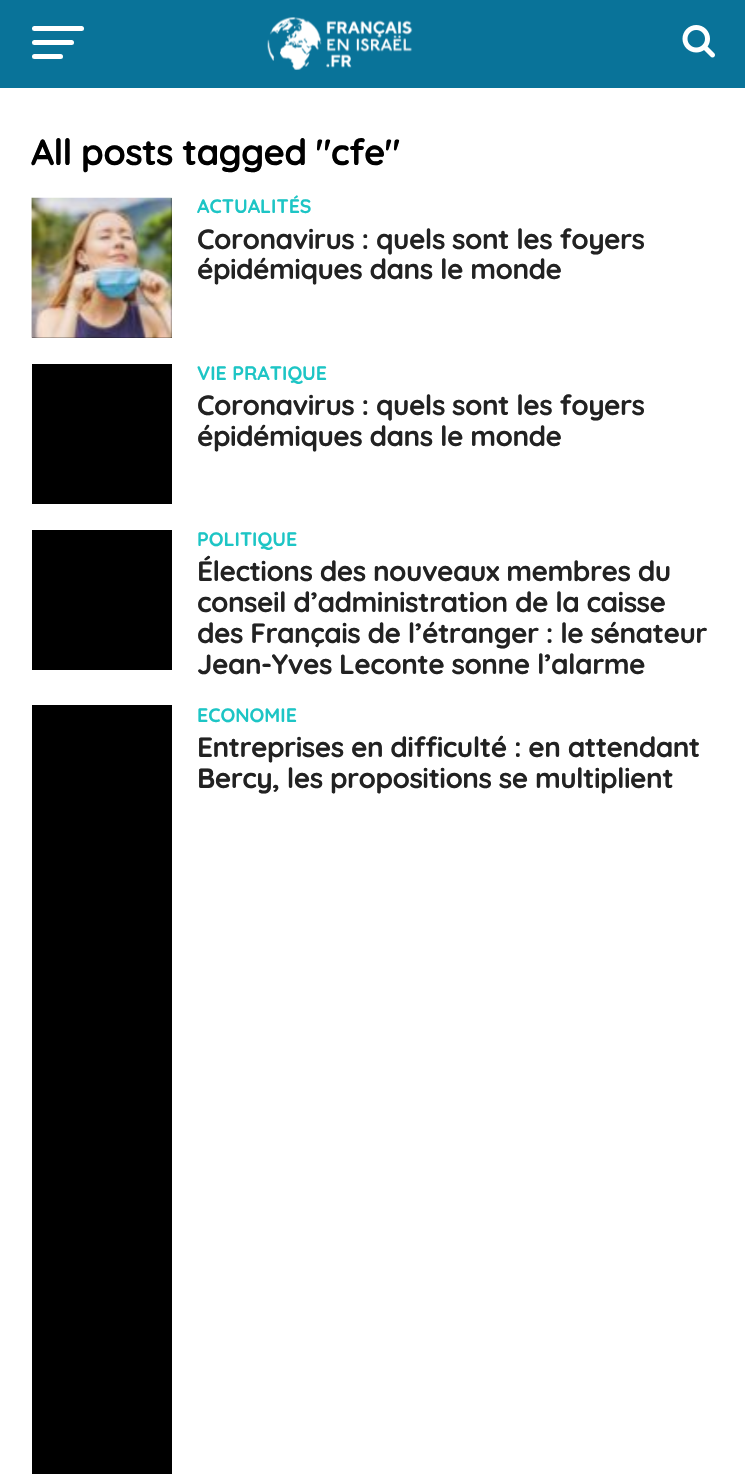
#include "include/core/SkBlurTypes.h"
#include "include/core/SkCanvas.h"
#include "include/core/SkData.h"
#include "include/core/SkFont.h"
#include "include/core/SkFontMgr.h"
#include "include/core/SkImage.h"
#include "include/core/SkMaskFilter.h"
#include "include/core/SkPaint.h"
#include "include/core/SkPathBuilder.h"
#include "include/core/SkTextBlob.h"
#include "include/effects/SkDashPathEffect.h"
#include "include/effects/SkGradientShader.h"
#include "include/utils/SkParsePath.h"

extern sk_sp<SkFontMgr> fontMgr;

void draw(SkCanvas* canvas) {
  SkPaint p;
  p.setAntiAlias(true);
  auto spacedText = [&](const char* s, float x, float y, const SkFont& font, const SkPaint& ink, float letter, float word) {
    std::vector<SkGlyphID> glyphs(font.countText(s, strlen(s), SkTextEncoding::kUTF8));
    std::vector<float> xs(glyphs.size());
    font.textToGlyphs(s, strlen(s), SkTextEncoding::kUTF8, glyphs);
    font.getXPos(glyphs, xs, x);
    float extra = 0;
    for (size_t i = 0; i < glyphs.size(); i++) {
      xs[i] += extra;
      extra += letter + word * (glyphs[i] == font.unicharToGlyph(' '));
    }
    canvas->drawTextBlob(SkTextBlob::MakeFromPosHGlyphs(glyphs, xs, y, font), 0, 0, ink);
  };
  canvas->clear(SK_ColorWHITE);
  p.setColor(SkColorSetRGB(9, 115, 153));
  canvas->drawRect(SkRect::MakeLTRB(0, 0, 745, 88), p);
  p.setColor(SK_ColorWHITE);
  canvas->drawRoundRect(SkRect::MakeLTRB(32, 26, 84, 31), 2.5f, 2.5f, p);
  canvas->drawRoundRect(SkRect::MakeLTRB(32, 40, 74, 45), 2.5f, 2.5f, p);
  canvas->drawRoundRect(SkRect::MakeLTRB(32, 54, 63, 59), 2.5f, 2.5f, p);
  canvas->drawImageRect(SkImages::DeferredFromEncodedData(SkData::MakeFromFileName("images/1.png")), SkRect::MakeLTRB(267, 17, 413, 70), SkSamplingOptions());
  canvas->drawImageRect(SkImages::DeferredFromEncodedData(SkData::MakeFromFileName("images/2.png")), SkRect::MakeLTRB(682, 25, 715, 58), SkSamplingOptions());
  p.setColor(SK_ColorBLACK);
  canvas->drawRect(SkRect::MakeLTRB(32, 198, 172, 338), p);
  canvas->drawImageRect(SkImages::DeferredFromEncodedData(SkData::MakeFromFileName("images/3.png")), SkRect::MakeLTRB(31, 197, 172, 338), SkSamplingOptions());
  canvas->drawRect(SkRect::MakeLTRB(32, 364, 172, 504), p);
  canvas->drawRect(SkRect::MakeLTRB(32, 530, 172, 670), p);
  canvas->drawRect(SkRect::MakeLTRB(32, 705, 172, 1474), p);
  SkFont font1(fontMgr->matchFamilyStyle("Quicksand", SkFontStyle::Bold()), 36.4f);
  font1.setSubpixel(true);
  spacedText("All posts tagged \"cfe\"", 31, 165, font1, p, -0.75f, 0);
  SkFont font2(fontMgr->matchFamilyStyle("Quicksand", SkFontStyle::Bold()), 19.5f);
  font2.setSubpixel(true);
  p.setColor(SkColorSetRGB(29, 197, 197));
  canvas->drawString("ACTUALITÉS", 197, 213, font2, p);
  SkFont font3(fontMgr->matchFamilyStyle("Quicksand", SkFontStyle::Bold()), 28);
  font3.setSubpixel(true);
  p.setColor(SkColorSetRGB(34, 34, 34));
  spacedText("Coronavirus : quels sont les foyers", 197, 249, font3, p, -0.55f, 0);
  spacedText("épidémiques dans le monde", 197, 279, font3, p, -0.55f, 0);
  p.setColor(SkColorSetRGB(29, 197, 197));
  canvas->drawString("VIE PRATIQUE", 197, 380, font2, p);
  p.setColor(SkColorSetRGB(34, 34, 34));
  spacedText("Coronavirus : quels sont les foyers", 197, 415, font3, p, -0.55f, 0);
  spacedText("épidémiques dans le monde", 197, 446, font3, p, -0.55f, 0);
  p.setColor(SkColorSetRGB(29, 197, 197));
  canvas->drawString("POLITIQUE", 197, 546, font2, p);
  p.setColor(SkColorSetRGB(34, 34, 34));
  spacedText("Élections des nouveaux membres du", 197, 581, font3, p, -0.55f, 0);
  spacedText("conseil d’administration de la caisse", 197, 612, font3, p, -0.55f, 0);
  spacedText("des Français de l’étranger : le sénateur", 197, 643, font3, p, -0.55f, 0);
  spacedText("Jean-Yves Leconte sonne l’alarme", 197, 674, font3, p, -0.55f, 0);
  p.setColor(SkColorSetRGB(29, 197, 197));
  canvas->drawString("ECONOMIE", 197, 722, font2, p);
  p.setColor(SkColorSetRGB(34, 34, 34));
  spacedText("Entreprises en difficulté : en attendant", 197, 757, font3, p, -0.55f, 0);
  spacedText("Bercy, les propositions se multiplient", 197, 788, font3, p, -0.55f, 0);
}
